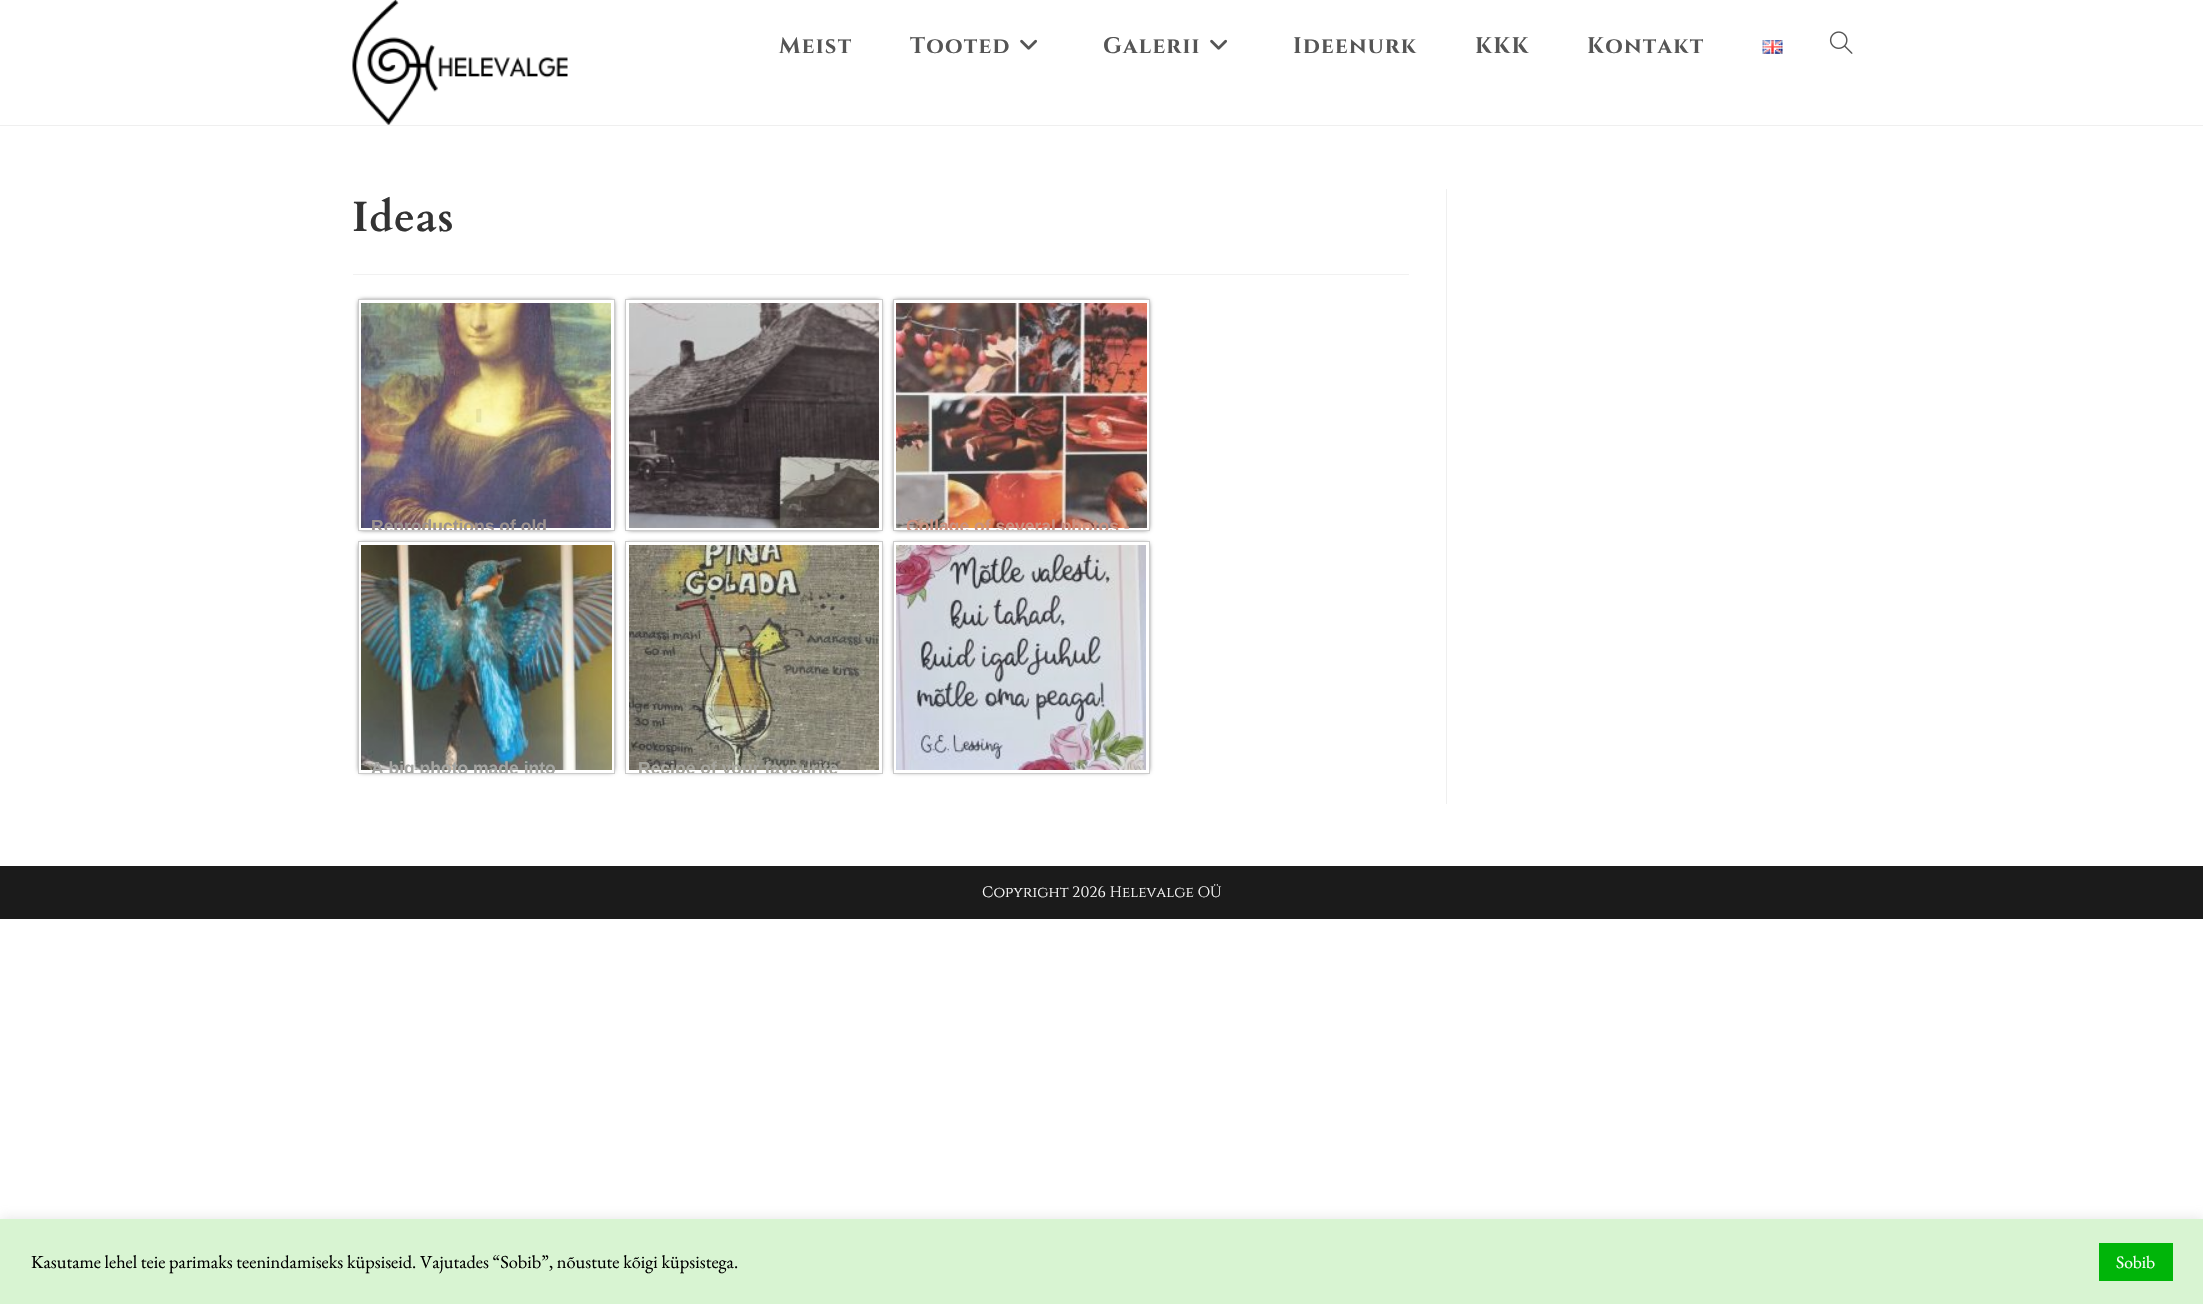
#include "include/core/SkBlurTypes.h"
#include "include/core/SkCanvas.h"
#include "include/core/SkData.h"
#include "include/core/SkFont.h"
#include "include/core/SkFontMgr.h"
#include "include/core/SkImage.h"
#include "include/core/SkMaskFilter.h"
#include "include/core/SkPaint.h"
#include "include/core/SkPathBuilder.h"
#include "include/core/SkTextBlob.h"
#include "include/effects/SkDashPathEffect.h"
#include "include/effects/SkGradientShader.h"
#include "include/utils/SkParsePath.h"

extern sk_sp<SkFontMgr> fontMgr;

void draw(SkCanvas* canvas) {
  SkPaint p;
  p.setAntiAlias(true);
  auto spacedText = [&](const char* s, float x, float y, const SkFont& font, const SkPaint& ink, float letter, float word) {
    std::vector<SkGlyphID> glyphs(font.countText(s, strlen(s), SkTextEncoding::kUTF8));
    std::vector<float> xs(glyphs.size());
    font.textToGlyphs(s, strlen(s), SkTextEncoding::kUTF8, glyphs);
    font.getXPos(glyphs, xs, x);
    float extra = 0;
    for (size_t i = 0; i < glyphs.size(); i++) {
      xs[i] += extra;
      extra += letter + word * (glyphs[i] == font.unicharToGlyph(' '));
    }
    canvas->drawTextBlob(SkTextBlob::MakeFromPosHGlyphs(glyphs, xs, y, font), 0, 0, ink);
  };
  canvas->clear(SK_ColorWHITE);
  p.setColor(SkColorSetRGB(239, 239, 239));
  canvas->drawRect(SkRect::MakeLTRB(0, 125, 2203, 126), p);
  canvas->drawImageRect(SkImages::DeferredFromEncodedData(SkData::MakeFromFileName("images/1.png")), SkRect::MakeLTRB(352, 0, 568, 125), SkSamplingOptions());
  canvas->drawImageRect(SkImages::DeferredFromEncodedData(SkData::MakeFromFileName("images/2.png")), SkRect::MakeLTRB(1020, 39, 1037, 50), SkSamplingOptions());
  canvas->drawImageRect(SkImages::DeferredFromEncodedData(SkData::MakeFromFileName("images/2.png")), SkRect::MakeLTRB(1210, 39, 1227, 50), SkSamplingOptions());
  canvas->drawImageRect(SkImages::DeferredFromEncodedData(SkData::MakeFromFileName("images/3.png")), SkRect::MakeLTRB(1762, 40, 1783, 54), SkSamplingOptions());
  canvas->drawImageRect(SkImages::DeferredFromEncodedData(SkData::MakeFromFileName("images/4.png")), SkRect::MakeLTRB(1829, 31, 1853, 54), SkSamplingOptions());
  canvas->drawRect(SkRect::MakeLTRB(1446, 189, 1447, 804), p);
  p.setColor(SkColorSetRGB(241, 241, 241));
  canvas->drawRect(SkRect::MakeLTRB(353, 274, 1409, 275), p);
  canvas->save();
  canvas->clipPath(SkPathBuilder(SkPathFillType::kEvenOdd).moveTo(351, 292).lineTo(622, 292).lineTo(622, 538).lineTo(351, 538).close().moveTo(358, 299).lineTo(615, 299).lineTo(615, 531).lineTo(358, 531).close().detach(), true);
  p.setColor(SkColorSetRGB(10, 10, 10));
  p.setMaskFilter(SkMaskFilter::MakeBlur(kNormal_SkBlurStyle, 2.5f));
  canvas->drawRect(SkRect::MakeLTRB(360, 301, 613, 529), p);
  p.setMaskFilter(nullptr);
  canvas->restore();
  canvas->drawImageRect(SkImages::DeferredFromEncodedData(SkData::MakeFromFileName("images/5.png")), SkRect::MakeLTRB(476, 408, 482, 423), SkSamplingOptions());
  p.setStyle(SkPaint::kStroke_Style);
  p.setStrokeWidth(1);
  p.setColor(SkColorSetRGB(204, 204, 204));
  canvas->drawRect(SkRect::MakeLTRB(358.5f, 299.5f, 614.5f, 530.5f), p);
  canvas->drawImageRect(SkImages::DeferredFromEncodedData(SkData::MakeFromFileName("images/6.png")), SkRect::MakeLTRB(361, 303, 611, 528), SkSamplingOptions());
  canvas->save();
  canvas->clipPath(SkPathBuilder(SkPathFillType::kEvenOdd).moveTo(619, 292).lineTo(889, 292).lineTo(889, 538).lineTo(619, 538).close().moveTo(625, 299).lineTo(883, 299).lineTo(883, 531).lineTo(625, 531).close().detach(), true);
  p.setStyle(SkPaint::kFill_Style);
  p.setColor(SkColorSetRGB(10, 10, 10));
  p.setMaskFilter(SkMaskFilter::MakeBlur(kNormal_SkBlurStyle, 2.5f));
  canvas->drawRect(SkRect::MakeLTRB(628, 301, 880, 529), p);
  p.setMaskFilter(nullptr);
  canvas->restore();
  canvas->drawImageRect(SkImages::DeferredFromEncodedData(SkData::MakeFromFileName("images/7.png")), SkRect::MakeLTRB(743, 408, 749, 423), SkSamplingOptions());
  p.setStyle(SkPaint::kStroke_Style);
  p.setColor(SkColorSetRGB(204, 204, 204));
  canvas->drawRect(SkRect::MakeLTRB(625.5f, 299.5f, 882.5f, 530.5f), p);
  canvas->drawImageRect(SkImages::DeferredFromEncodedData(SkData::MakeFromFileName("images/8.png")), SkRect::MakeLTRB(629, 303, 879, 528), SkSamplingOptions());
  canvas->save();
  canvas->clipPath(SkPathBuilder(SkPathFillType::kEvenOdd).moveTo(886, 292).lineTo(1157, 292).lineTo(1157, 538).lineTo(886, 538).close().moveTo(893, 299).lineTo(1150, 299).lineTo(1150, 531).lineTo(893, 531).close().detach(), true);
  p.setStyle(SkPaint::kFill_Style);
  p.setColor(SkColorSetRGB(10, 10, 10));
  p.setMaskFilter(SkMaskFilter::MakeBlur(kNormal_SkBlurStyle, 2.5f));
  canvas->drawRect(SkRect::MakeLTRB(895, 301, 1148, 529), p);
  p.setMaskFilter(nullptr);
  canvas->restore();
  canvas->drawImageRect(SkImages::DeferredFromEncodedData(SkData::MakeFromFileName("images/9.png")), SkRect::MakeLTRB(1011, 408, 1017, 423), SkSamplingOptions());
  p.setStyle(SkPaint::kStroke_Style);
  p.setColor(SkColorSetRGB(204, 204, 204));
  canvas->drawRect(SkRect::MakeLTRB(893.5f, 299.5f, 1149.5f, 530.5f), p);
  canvas->drawImageRect(SkImages::DeferredFromEncodedData(SkData::MakeFromFileName("images/10.png")), SkRect::MakeLTRB(896, 303, 1147, 528), SkSamplingOptions());
  canvas->save();
  canvas->clipPath(SkPathBuilder(SkPathFillType::kEvenOdd).moveTo(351, 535).lineTo(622, 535).lineTo(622, 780).lineTo(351, 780).close().moveTo(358, 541).lineTo(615, 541).lineTo(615, 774).lineTo(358, 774).close().detach(), true);
  p.setStyle(SkPaint::kFill_Style);
  p.setColor(SkColorSetRGB(10, 10, 10));
  p.setMaskFilter(SkMaskFilter::MakeBlur(kNormal_SkBlurStyle, 2.5f));
  canvas->drawRect(SkRect::MakeLTRB(360, 544, 613, 771), p);
  p.setMaskFilter(nullptr);
  canvas->restore();
  canvas->drawImageRect(SkImages::DeferredFromEncodedData(SkData::MakeFromFileName("images/11.png")), SkRect::MakeLTRB(476, 651, 482, 666), SkSamplingOptions());
  p.setStyle(SkPaint::kStroke_Style);
  p.setColor(SkColorSetRGB(204, 204, 204));
  canvas->drawRect(SkRect::MakeLTRB(358.5f, 541.5f, 614.5f, 773.5f), p);
  canvas->drawImageRect(SkImages::DeferredFromEncodedData(SkData::MakeFromFileName("images/12.png")), SkRect::MakeLTRB(361, 545, 612, 770), SkSamplingOptions());
  canvas->save();
  canvas->clipPath(SkPathBuilder(SkPathFillType::kEvenOdd).moveTo(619, 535).lineTo(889, 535).lineTo(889, 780).lineTo(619, 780).close().moveTo(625, 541).lineTo(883, 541).lineTo(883, 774).lineTo(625, 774).close().detach(), true);
  p.setStyle(SkPaint::kFill_Style);
  p.setColor(SkColorSetRGB(10, 10, 10));
  p.setMaskFilter(SkMaskFilter::MakeBlur(kNormal_SkBlurStyle, 2.5f));
  canvas->drawRect(SkRect::MakeLTRB(628, 544, 880, 771), p);
  p.setMaskFilter(nullptr);
  canvas->restore();
  canvas->drawImageRect(SkImages::DeferredFromEncodedData(SkData::MakeFromFileName("images/13.png")), SkRect::MakeLTRB(743, 651, 749, 666), SkSamplingOptions());
  p.setStyle(SkPaint::kStroke_Style);
  p.setColor(SkColorSetRGB(204, 204, 204));
  canvas->drawRect(SkRect::MakeLTRB(625.5f, 541.5f, 882.5f, 773.5f), p);
  canvas->drawImageRect(SkImages::DeferredFromEncodedData(SkData::MakeFromFileName("images/14.png")), SkRect::MakeLTRB(629, 545, 879, 770), SkSamplingOptions());
  canvas->save();
  canvas->clipPath(SkPathBuilder(SkPathFillType::kEvenOdd).moveTo(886, 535).lineTo(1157, 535).lineTo(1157, 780).lineTo(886, 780).close().moveTo(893, 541).lineTo(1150, 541).lineTo(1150, 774).lineTo(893, 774).close().detach(), true);
  p.setStyle(SkPaint::kFill_Style);
  p.setColor(SkColorSetRGB(10, 10, 10));
  p.setMaskFilter(SkMaskFilter::MakeBlur(kNormal_SkBlurStyle, 2.5f));
  canvas->drawRect(SkRect::MakeLTRB(895, 544, 1148, 771), p);
  p.setMaskFilter(nullptr);
  canvas->restore();
  canvas->drawImageRect(SkImages::DeferredFromEncodedData(SkData::MakeFromFileName("images/15.png")), SkRect::MakeLTRB(1011, 651, 1017, 666), SkSamplingOptions());
  p.setStyle(SkPaint::kStroke_Style);
  p.setColor(SkColorSetRGB(204, 204, 204));
  canvas->drawRect(SkRect::MakeLTRB(893.5f, 541.5f, 1149.5f, 773.5f), p);
  canvas->drawImageRect(SkImages::DeferredFromEncodedData(SkData::MakeFromFileName("images/16.png")), SkRect::MakeLTRB(896, 545, 1146, 770), SkSamplingOptions());
  p.setStyle(SkPaint::kFill_Style);
  p.setColor(SkColorSetRGB(27, 27, 27));
  canvas->drawRect(SkRect::MakeLTRB(0, 866, 2203, 919), p);
  p.setColor(SkColorSetARGB(77, 172, 171, 171));
  p.setMaskFilter(SkMaskFilter::MakeBlur(kNormal_SkBlurStyle, 6));
  canvas->drawRect(SkRect::MakeLTRB(0, 1218, 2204, 1304), p);
  p.setMaskFilter(nullptr);
  p.setColor(SkColorSetRGB(216, 244, 210));
  canvas->drawRect(SkRect::MakeLTRB(0, 1219, 2203, 1304), p);
  p.setColor(SkColorSetRGB(0, 181, 9));
  canvas->drawRect(SkRect::MakeLTRB(2099, 1243, 2173, 1281), p);
  SkFont font1(fontMgr->matchFamilyStyle("Cinzel", SkFontStyle::Bold()), 22.5f);
  font1.setSubpixel(true);
  p.setColor(SkColorSetRGB(85, 85, 85));
  spacedText("Meist", 779, 53, font1, p, 1.25f, 0);
  spacedText("Tooted", 910, 53, font1, p, 1.25f, 0);
  spacedText("Galerii", 1103, 53, font1, p, 1.25f, 0);
  spacedText("Ideenurk", 1293, 53, font1, p, 1.25f, 0);
  spacedText("KKK", 1475, 53, font1, p, 1.25f, 0);
  spacedText("Kontakt", 1587, 53, font1, p, 1.25f, 0);
  SkFont font2(fontMgr->matchFamilyStyle("Cardo", SkFontStyle::Bold()), 42.5f);
  font2.setSubpixel(true);
  p.setColor(SkColorSetRGB(51, 51, 51));
  spacedText("Ideas", 352, 231, font2, p, 0.75f, 0);
  canvas->save();
  canvas->clipRect(SkRect::MakeLTRB(359, 465, 614, 530));
  SkFont font3(fontMgr->matchFamilyStyle("Liberation Sans", SkFontStyle::Bold()), 17.5f);
  font3.setSubpixel(true);
  p.setColor(SkColorSetRGB(156, 146, 144));
  canvas->drawString("Reproductions of old", 371, 532, font3, p);
  canvas->restore();
  canvas->save();
  canvas->clipRect(SkRect::MakeLTRB(894, 448, 1149, 530));
  p.setColor(SkColorSetRGB(203, 145, 128));
  canvas->drawString("Collage of several photos -", 906, 532, font3, p);
  canvas->restore();
  canvas->save();
  canvas->clipRect(SkRect::MakeLTRB(359, 708, 614, 773));
  p.setColor(SkColorSetRGB(165, 166, 163));
  canvas->drawString("A big photo made into", 371, 774, font3, p);
  canvas->restore();
  canvas->save();
  canvas->clipRect(SkRect::MakeLTRB(626, 690, 881, 773));
  p.setColor(SkColorSetRGB(165, 164, 157));
  canvas->drawString("Recipe of your favourite", 638, 774, font3, p);
  canvas->restore();
  SkFont font4(fontMgr->matchFamilyStyle("Cinzel", SkFontStyle::Normal()), 15);
  font4.setSubpixel(true);
  p.setColor(SK_ColorWHITE);
  canvas->drawString("Copyright 2026 Helevalge OÜ", 982, 897, font4, p);
  SkFont font5(fontMgr->matchFamilyStyle("EB Garamond", SkFontStyle::Normal()), 18.35f);
  font5.setSubpixel(true);
  p.setColor(SK_ColorBLACK);
  canvas->drawString("Kasutame lehel teie parimaks teenindamiseks küpsiseid. Vajutades “Sobib”, nõustute kõigi küpsistega.", 31, 1268, font5, p);
  SkFont font6(fontMgr->matchFamilyStyle("EB Garamond", SkFontStyle::Normal()), 17.5f);
  font6.setSubpixel(true);
  p.setColor(SK_ColorWHITE);
  canvas->drawString("Sobib", 2116, 1268, font6, p);
}
